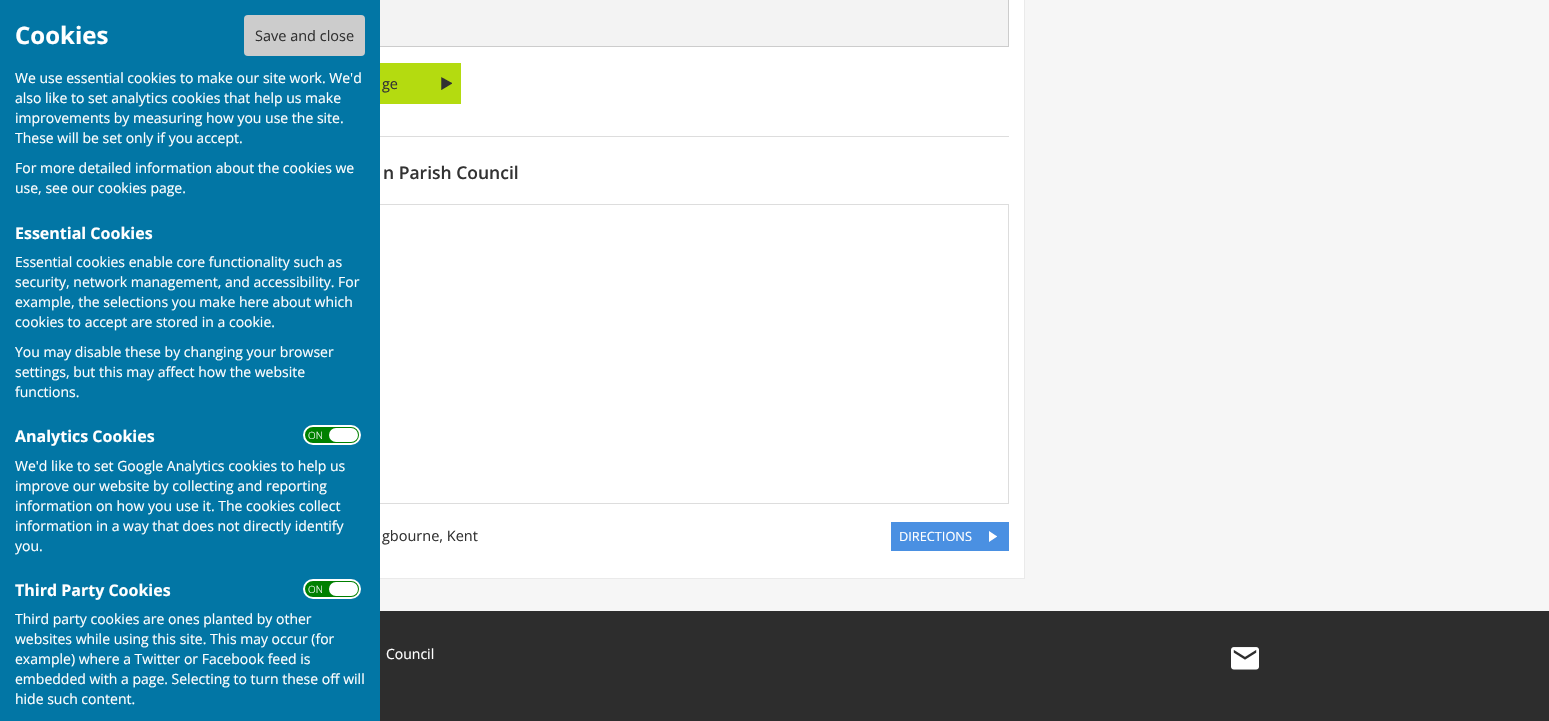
#include "include/core/SkBlurTypes.h"
#include "include/core/SkCanvas.h"
#include "include/core/SkData.h"
#include "include/core/SkFont.h"
#include "include/core/SkFontMgr.h"
#include "include/core/SkImage.h"
#include "include/core/SkMaskFilter.h"
#include "include/core/SkPaint.h"
#include "include/core/SkPathBuilder.h"
#include "include/core/SkTextBlob.h"
#include "include/effects/SkDashPathEffect.h"
#include "include/effects/SkGradientShader.h"
#include "include/utils/SkParsePath.h"

extern sk_sp<SkFontMgr> fontMgr;

void draw(SkCanvas* canvas) {
  SkPaint p;
  p.setAntiAlias(true);
  canvas->clear(SkColorSetRGB(246, 246, 246));
  p.setColor(SK_ColorWHITE);
  canvas->drawRect(SkRect::MakeLTRB(380, 0, 1024, 578), p);
  p.setStyle(SkPaint::kStroke_Style);
  p.setStrokeWidth(1);
  p.setColor(SkColorSetRGB(234, 234, 234));
  canvas->drawRect(SkRect::MakeLTRB(275.5f, -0.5f, 1024.5f, 578.5f), p);
  p.setStyle(SkPaint::kFill_Style);
  p.setColor(SkColorSetRGB(243, 243, 243));
  canvas->drawRect(SkRect::MakeLTRB(380, 0, 1008, 46), p);
  p.setStyle(SkPaint::kStroke_Style);
  p.setColor(SkColorSetRGB(204, 204, 204));
  canvas->drawRect(SkRect::MakeLTRB(291.5f, -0.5f, 1008.5f, 46.5f), p);
  p.setColor(SkColorSetRGB(221, 221, 221));
  canvas->drawRect(SkRect::MakeLTRB(291.5f, 204.5f, 1008.5f, 503.5f), p);
  p.setStyle(SkPaint::kFill_Style);
  p.setColor(SkColorSetRGB(2, 118, 165));
  canvas->drawRect(SkRect::MakeLTRB(0, 0, 380, 721), p);
  p.setColor(SkColorSetRGB(204, 204, 204));
  canvas->drawRoundRect(SkRect::MakeLTRB(244, 15, 365, 56), 4, 4, p);
  p.setColor(SkColorSetRGB(0, 128, 0));
  canvas->drawRoundRect(SkRect::MakeLTRB(304, 426, 360, 444), 9, 9, p);
  p.setStyle(SkPaint::kStroke_Style);
  p.setStrokeWidth(2);
  p.setColor(SK_ColorWHITE);
  canvas->drawRoundRect(SkRect::MakeLTRB(304, 426, 360, 444), 9, 9, p);
  p.setStyle(SkPaint::kFill_Style);
  canvas->drawRoundRect(SkRect::MakeLTRB(329, 428, 358, 442), 7, 7, p);
  p.setColor(SkColorSetRGB(0, 128, 0));
  canvas->drawRoundRect(SkRect::MakeLTRB(304, 580, 360, 598), 9, 9, p);
  p.setStyle(SkPaint::kStroke_Style);
  p.setColor(SK_ColorWHITE);
  canvas->drawRoundRect(SkRect::MakeLTRB(304, 580, 360, 598), 9, 9, p);
  p.setStyle(SkPaint::kFill_Style);
  canvas->drawRoundRect(SkRect::MakeLTRB(329, 582, 358, 596), 7, 7, p);
  p.setColor(SkColorSetRGB(180, 219, 16));
  canvas->drawRect(SkRect::MakeLTRB(380, 63, 461, 104), p);
  canvas->drawImageRect(SkImages::DeferredFromEncodedData(SkData::MakeFromFileName("images/1.png")), SkRect::MakeLTRB(441, 77, 452, 90), SkSamplingOptions());
  p.setColor(SkColorSetRGB(221, 221, 221));
  canvas->drawRect(SkRect::MakeLTRB(380, 136, 1009, 137), p);
  p.setColor(SkColorSetRGB(74, 144, 226));
  canvas->drawRect(SkRect::MakeLTRB(891, 522, 1009, 551), p);
  canvas->drawImageRect(SkImages::DeferredFromEncodedData(SkData::MakeFromFileName("images/2.png")), SkRect::MakeLTRB(989, 531, 997, 542), SkSamplingOptions());
  p.setColor(SkColorSetRGB(45, 45, 45));
  canvas->drawRect(SkRect::MakeLTRB(380, 611, 1549, 721), p);
  canvas->drawImageRect(SkImages::DeferredFromEncodedData(SkData::MakeFromFileName("images/3.png")), SkRect::MakeLTRB(1231, 647, 1259, 670), SkSamplingOptions());
  SkFont font1(fontMgr->matchFamilyStyle("Open Sans", SkFontStyle::Bold()), 24);
  font1.setSubpixel(true);
  p.setColor(SK_ColorWHITE);
  canvas->drawString("Cookies", 15, 44, font1, p);
  SkFont font2(fontMgr->matchFamilyStyle("Open Sans", SkFontStyle::Normal()), 14.5f);
  font2.setSubpixel(true);
  p.setColor(SkColorSetRGB(51, 51, 51));
  canvas->drawString("Save and close", 255, 41, font2, p);
  SkFont font3(fontMgr->matchFamilyStyle("Open Sans", SkFontStyle::Normal()), 14);
  font3.setSubpixel(true);
  p.setColor(SK_ColorWHITE);
  canvas->drawString("We use essential cookies to make our site work. We'd", 15, 83, font3, p);
  canvas->drawString("also like to set analytics cookies that help us make", 15, 103, font3, p);
  canvas->drawString("improvements by measuring how you use the site.", 15, 123, font3, p);
  canvas->drawString("These will be set only if you accept.", 15, 143, font3, p);
  canvas->drawString("For more detailed information about the cookies we", 15, 173, font3, p);
  canvas->drawString("use, see our cookies page.", 15, 193, font3, p);
  SkFont font4(fontMgr->matchFamilyStyle("Open Sans", SkFontStyle::Bold()), 16);
  font4.setSubpixel(true);
  canvas->drawString("Essential Cookies", 15, 239, font4, p);
  canvas->drawString("Essential cookies enable core functionality such as", 15, 267, font3, p);
  canvas->drawString("security, network management, and accessibility. For", 15, 287, font3, p);
  canvas->drawString("example, the selections you make here about which", 15, 307, font3, p);
  canvas->drawString("cookies to accept are stored in a cookie.", 15, 327, font3, p);
  canvas->drawString("You may disable these by changing your browser", 15, 357, font3, p);
  canvas->drawString("settings, but this may affect how the website", 15, 377, font3, p);
  canvas->drawString("functions.", 15, 397, font3, p);
  canvas->drawString("Analytics Cookies", 15, 442, font4, p);
  SkFont font5(fontMgr->matchFamilyStyle("Open Sans", SkFontStyle(300, SkFontStyle::kNormal_Width, SkFontStyle::kUpright_Slant)), 10);
  font5.setSubpixel(true);
  canvas->drawString("ON", 308, 439, font5, p);
  canvas->drawString("We'd like to set Google Analytics cookies to help us", 15, 471, font3, p);
  canvas->drawString("improve our website by collecting and reporting", 15, 491, font3, p);
  canvas->drawString("information on how you use it. The cookies collect", 15, 511, font3, p);
  canvas->drawString("information in a way that does not directly identify", 15, 531, font3, p);
  canvas->drawString("you.", 15, 551, font3, p);
  canvas->drawString("Third Party Cookies", 15, 596, font4, p);
  canvas->drawString("ON", 308, 593, font5, p);
  canvas->drawString("Third party cookies are ones planted by other", 15, 624, font3, p);
  canvas->drawString("websites while using this site. This may occur (for", 15, 644, font3, p);
  canvas->drawString("example) where a Twitter or Facebook feed is", 15, 664, font3, p);
  canvas->drawString("embedded with a page. Selecting to turn these off will", 15, 684, font3, p);
  canvas->drawString("hide such content.", 15, 704, font3, p);
  p.setColor(SkColorSetRGB(51, 51, 51));
  canvas->drawString("ge", 382, 89, font2, p);
  SkFont font6(fontMgr->matchFamilyStyle("Open Sans", SkFontStyle(600, SkFontStyle::kNormal_Width, SkFontStyle::kUpright_Slant)), 17.5f);
  font6.setSubpixel(true);
  canvas->drawString("n Parish Council", 383, 179, font6, p);
  canvas->drawString("gbourne, Kent", 382, 541, font2, p);
  SkFont font7(fontMgr->matchFamilyStyle("Open Sans", SkFontStyle::Normal()), 12.75f);
  font7.setSubpixel(true);
  p.setColor(SK_ColorWHITE);
  canvas->drawString("DIRECTIONS", 899, 541, font7, p);
  canvas->drawString("Council", 386, 659, font3, p);
}
